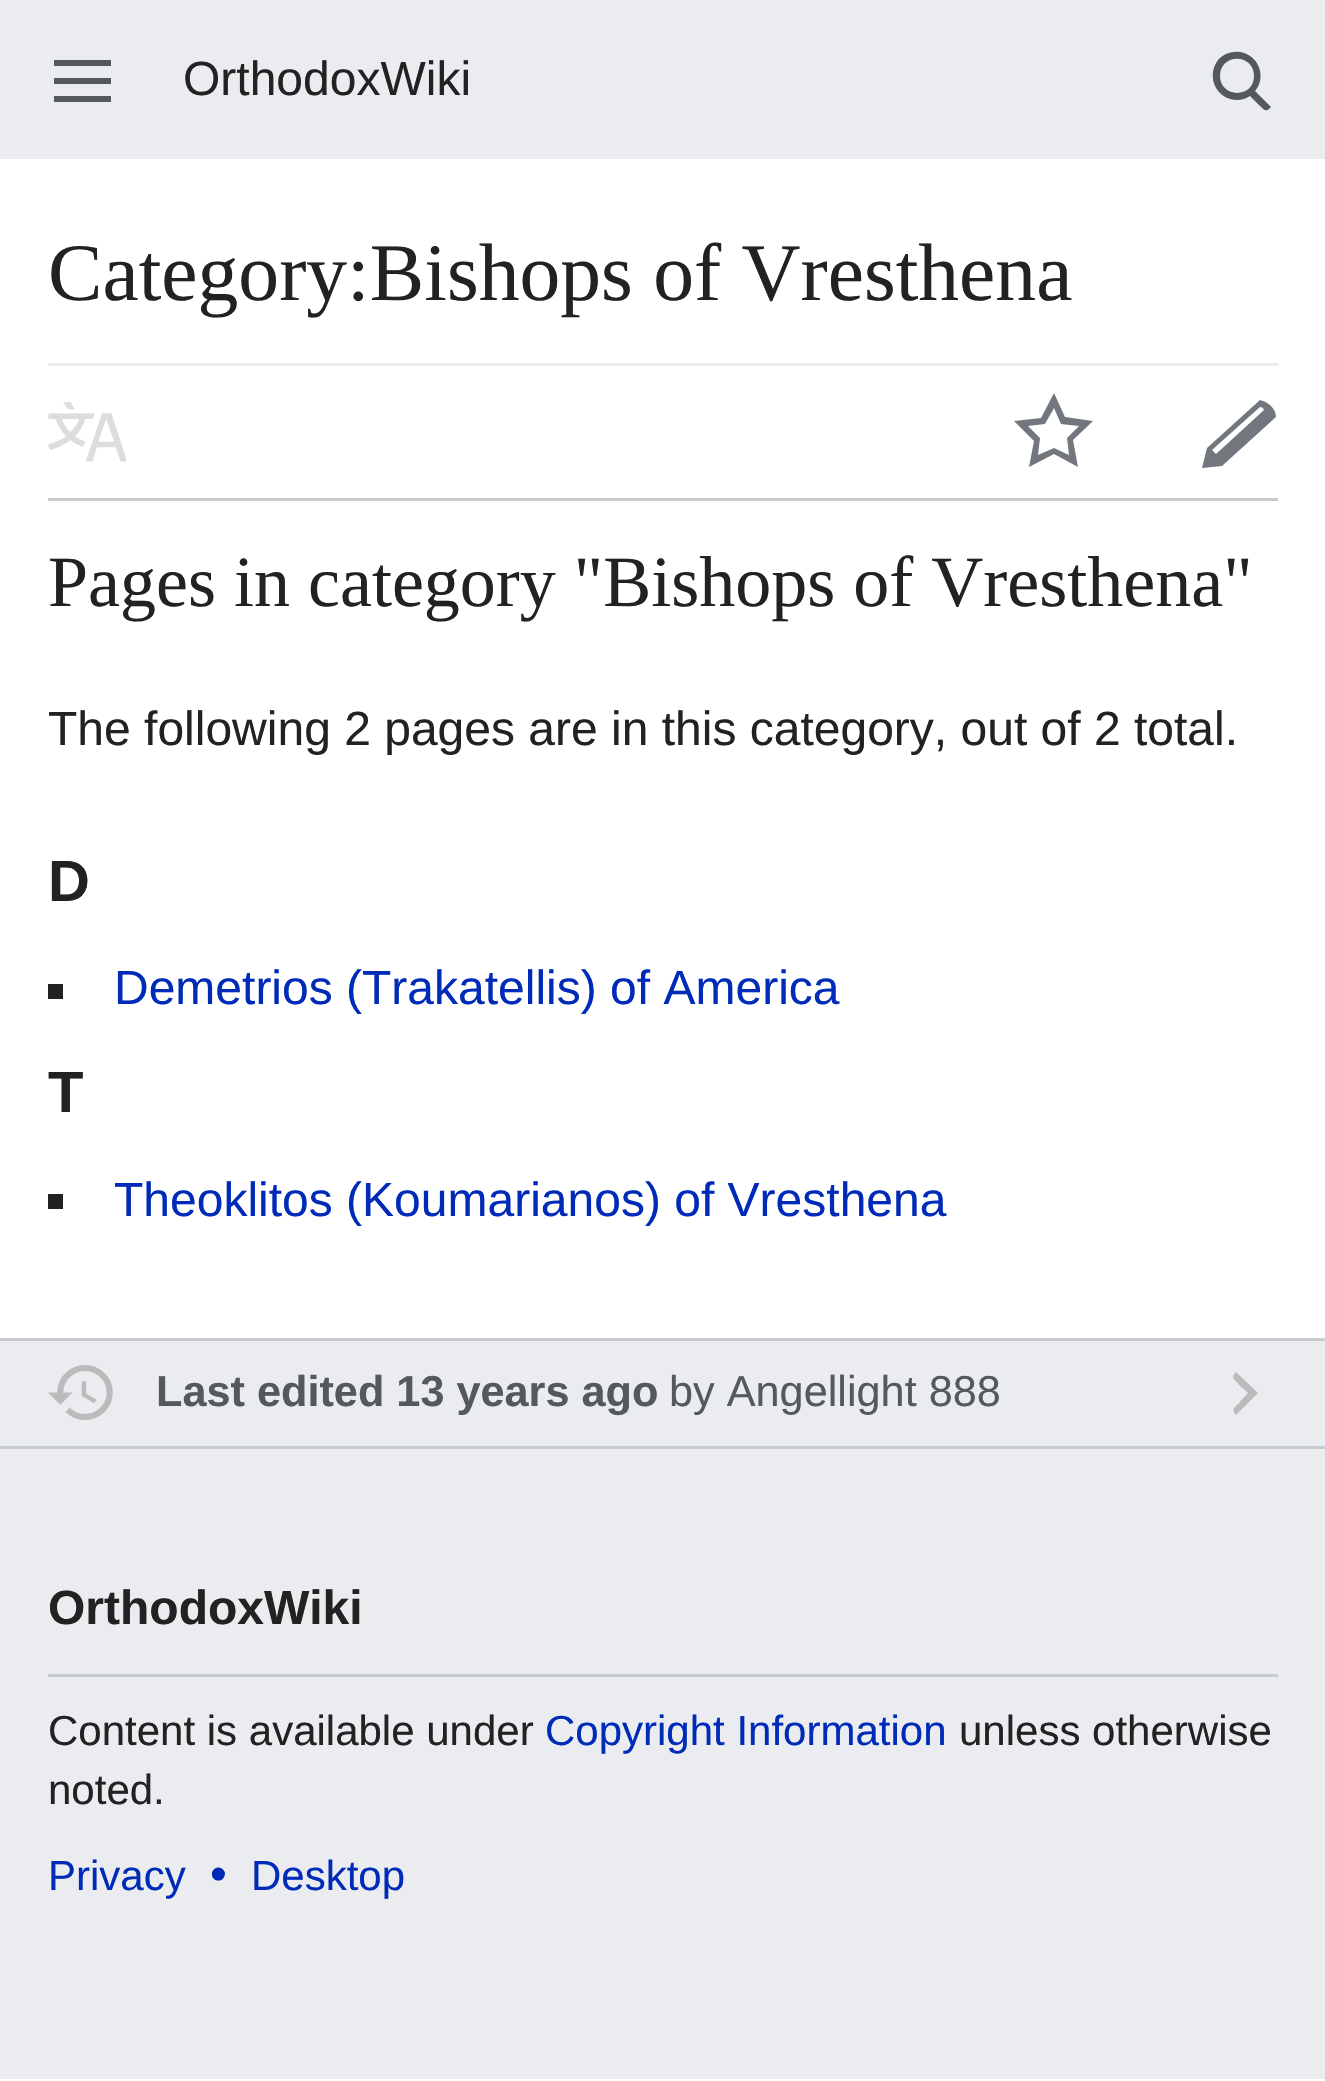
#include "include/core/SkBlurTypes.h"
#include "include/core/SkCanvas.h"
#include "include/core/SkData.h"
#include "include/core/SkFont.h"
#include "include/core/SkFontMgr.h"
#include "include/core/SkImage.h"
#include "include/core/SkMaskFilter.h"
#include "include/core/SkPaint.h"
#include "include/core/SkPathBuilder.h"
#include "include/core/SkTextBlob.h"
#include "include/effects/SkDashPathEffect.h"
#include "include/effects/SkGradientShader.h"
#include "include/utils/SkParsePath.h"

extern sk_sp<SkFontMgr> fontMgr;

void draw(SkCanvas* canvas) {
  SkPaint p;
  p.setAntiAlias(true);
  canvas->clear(SK_ColorWHITE);
  p.setColor(SkColorSetRGB(234, 236, 240));
  canvas->drawRect(SkRect::MakeLTRB(0, 0, 1325, 2079), p);
  p.setColor(SkColorSetRGB(84, 89, 93));
  canvas->drawPath(SkPathBuilder(SkPathFillType::kEvenOdd).moveTo(111, 102).lineTo(54, 102).lineTo(54, 96).lineTo(111, 96).close().moveTo(111, 84).lineTo(54, 84).lineTo(54, 78).lineTo(111, 78).close().moveTo(111, 66).lineTo(54, 66).lineTo(54, 60).lineTo(111, 60).close().detach(), p);
  canvas->drawPath(SkPathBuilder(SkPathFillType::kEvenOdd).moveTo(1255, 91).cubicTo(1264, 81, 1262, 64, 1250, 56).cubicTo(1246, 53, 1240, 51, 1234, 52).cubicTo(1208, 54, 1205, 91, 1230, 99).cubicTo(1237, 101, 1244, 100, 1250, 96).lineTo(1259, 105).cubicTo(1264, 110, 1266, 113, 1271, 107).close().moveTo(1220, 76).cubicTo(1220, 53, 1254, 53, 1254, 76).cubicTo(1254, 99, 1220, 98, 1220, 76).close().detach(), p);
  p.setColor(SK_ColorWHITE);
  canvas->drawRect(SkRect::MakeLTRB(0, 159, 1325, 1338), p);
  p.setColor(SkColorSetRGB(234, 236, 240));
  canvas->drawRect(SkRect::MakeLTRB(48, 363, 1278, 366), p);
  p.setColor(SkColorSetRGB(200, 204, 209));
  canvas->drawRect(SkRect::MakeLTRB(48, 498, 1278, 501), p);
  canvas->drawImageRect(SkImages::DeferredFromEncodedData(SkData::MakeFromFileName("images/1.png")), SkRect::MakeLTRB(48, 402, 126, 462), SkSamplingOptions());
  p.setColor(SkColorSetRGB(114, 119, 125));
  canvas->drawPath(SkPathBuilder(SkPathFillType::kEvenOdd).moveTo(1054, 408).lineTo(1061, 424).lineTo(1079, 426).lineTo(1067, 438).lineTo(1069, 455).lineTo(1054, 448).lineTo(1038, 455).lineTo(1040, 438).lineTo(1028, 426).lineTo(1045, 424).close().moveTo(1054, 393).lineTo(1041, 418).lineTo(1014, 421).lineTo(1034, 441).lineTo(1029, 467).lineTo(1054, 454).lineTo(1078, 467).lineTo(1073, 440).lineTo(1093, 421).lineTo(1065, 417).close().detach(), p);
  canvas->drawPath(SkPathBuilder().moveTo(1212, 450).lineTo(1216, 454).lineTo(1264, 410).cubicTo(1263, 408, 1262, 407, 1260, 407).close().moveTo(1207, 448).lineTo(1260, 400).cubicTo(1269, 402, 1276, 409, 1276, 417).lineTo(1222, 466).lineTo(1202, 468).close().detach(), p);
  p.setColor(SkColorSetRGB(34, 34, 34));
  canvas->drawRect(SkRect::MakeLTRB(48, 984, 63, 999), p);
  canvas->drawRect(SkRect::MakeLTRB(48, 1194, 63, 1209), p);
  p.setColor(SkColorSetRGB(200, 204, 209));
  canvas->drawRect(SkRect::MakeLTRB(0, 1338, 1325, 1341), p);
  canvas->drawRect(SkRect::MakeLTRB(0, 1446, 1325, 1449), p);
  canvas->drawImageRect(SkImages::DeferredFromEncodedData(SkData::MakeFromFileName("images/2.png")), SkRect::MakeLTRB(48, 1365, 113, 1420), SkSamplingOptions());
  p.setColor(SkColorSetRGB(187, 187, 187));
  canvas->drawPath(SkPathBuilder().moveTo(1233, 1377).cubicTo(1233, 1375, 1235, 1373, 1236, 1372).lineTo(1258, 1393).lineTo(1236, 1415).cubicTo(1231, 1409, 1234, 1408, 1239, 1403).lineTo(1248, 1393).cubicTo(1246, 1391, 1233, 1380, 1233, 1377).close().detach(), p);
  p.setColor(SkColorSetRGB(200, 204, 209));
  canvas->drawRect(SkRect::MakeLTRB(48, 1674, 1278, 1677), p);
  SkFont font1(fontMgr->matchFamilyStyle("Liberation Sans", SkFontStyle::Normal()), 48);
  font1.setSubpixel(true);
  p.setColor(SkColorSetRGB(34, 34, 34));
  canvas->drawString("OrthodoxWiki", 183, 95, font1, p);
  SkFont font2(fontMgr->matchFamilyStyle("Liberation Serif", SkFontStyle::Normal()), 81.6f);
  font2.setSubpixel(true);
  canvas->drawString("Category:Bishops of Vresthena", 48, 300, font2, p);
  SkFont font3(fontMgr->matchFamilyStyle("Liberation Serif", SkFontStyle::Normal()), 72);
  font3.setSubpixel(true);
  canvas->drawString("Pages in category \"Bishops of Vresthena\"", 48, 606, font3, p);
  canvas->drawString("The following 2 pages are in this category, out of 2 total.", 48, 745, font1, p);
  SkFont font4(fontMgr->matchFamilyStyle("Liberation Sans", SkFontStyle::Bold()), 58);
  font4.setSubpixel(true);
  canvas->drawString("D", 48, 901, font4, p);
  p.setColor(SkColorSetRGB(0, 43, 184));
  canvas->drawString("Demetrios (Trakatellis) of America", 114, 1004, font1, p);
  p.setColor(SkColorSetRGB(34, 34, 34));
  canvas->drawString("T", 48, 1112, font4, p);
  p.setColor(SkColorSetRGB(0, 43, 184));
  canvas->drawString("Theoklitos (Koumarianos) of Vresthena", 114, 1216, font1, p);
  SkFont font5(fontMgr->matchFamilyStyle("Liberation Sans", SkFontStyle::Bold()), 43.25f);
  font5.setSubpixel(true);
  p.setColor(SkColorSetRGB(84, 89, 93));
  canvas->drawString("Last edited 13 years ago", 156, 1406, font5, p);
  SkFont font6(fontMgr->matchFamilyStyle("Liberation Sans", SkFontStyle::Normal()), 43.25f);
  font6.setSubpixel(true);
  canvas->drawString("by Angellight 888", 669, 1406, font6, p);
  SkFont font7(fontMgr->matchFamilyStyle("Liberation Sans", SkFontStyle::Bold()), 48);
  font7.setSubpixel(true);
  p.setColor(SkColorSetRGB(34, 34, 34));
  canvas->drawString("OrthodoxWiki", 48, 1624, font7, p);
  SkFont font8(fontMgr->matchFamilyStyle("Liberation Sans", SkFontStyle::Normal()), 42);
  font8.setSubpixel(true);
  canvas->drawString("Content is available under", 48, 1745, font8, p);
  p.setColor(SkColorSetRGB(0, 43, 184));
  canvas->drawString("Copyright Information", 545, 1745, font8, p);
  p.setColor(SkColorSetRGB(34, 34, 34));
  canvas->drawString("unless otherwise", 959, 1745, font8, p);
  canvas->drawString("noted.", 48, 1804, font8, p);
  p.setColor(SkColorSetRGB(0, 43, 184));
  canvas->drawString("Privacy", 48, 1890, font8, p);
  canvas->drawString("•", 210, 1890, font1, p);
  canvas->drawString("Desktop", 251, 1890, font8, p);
}
